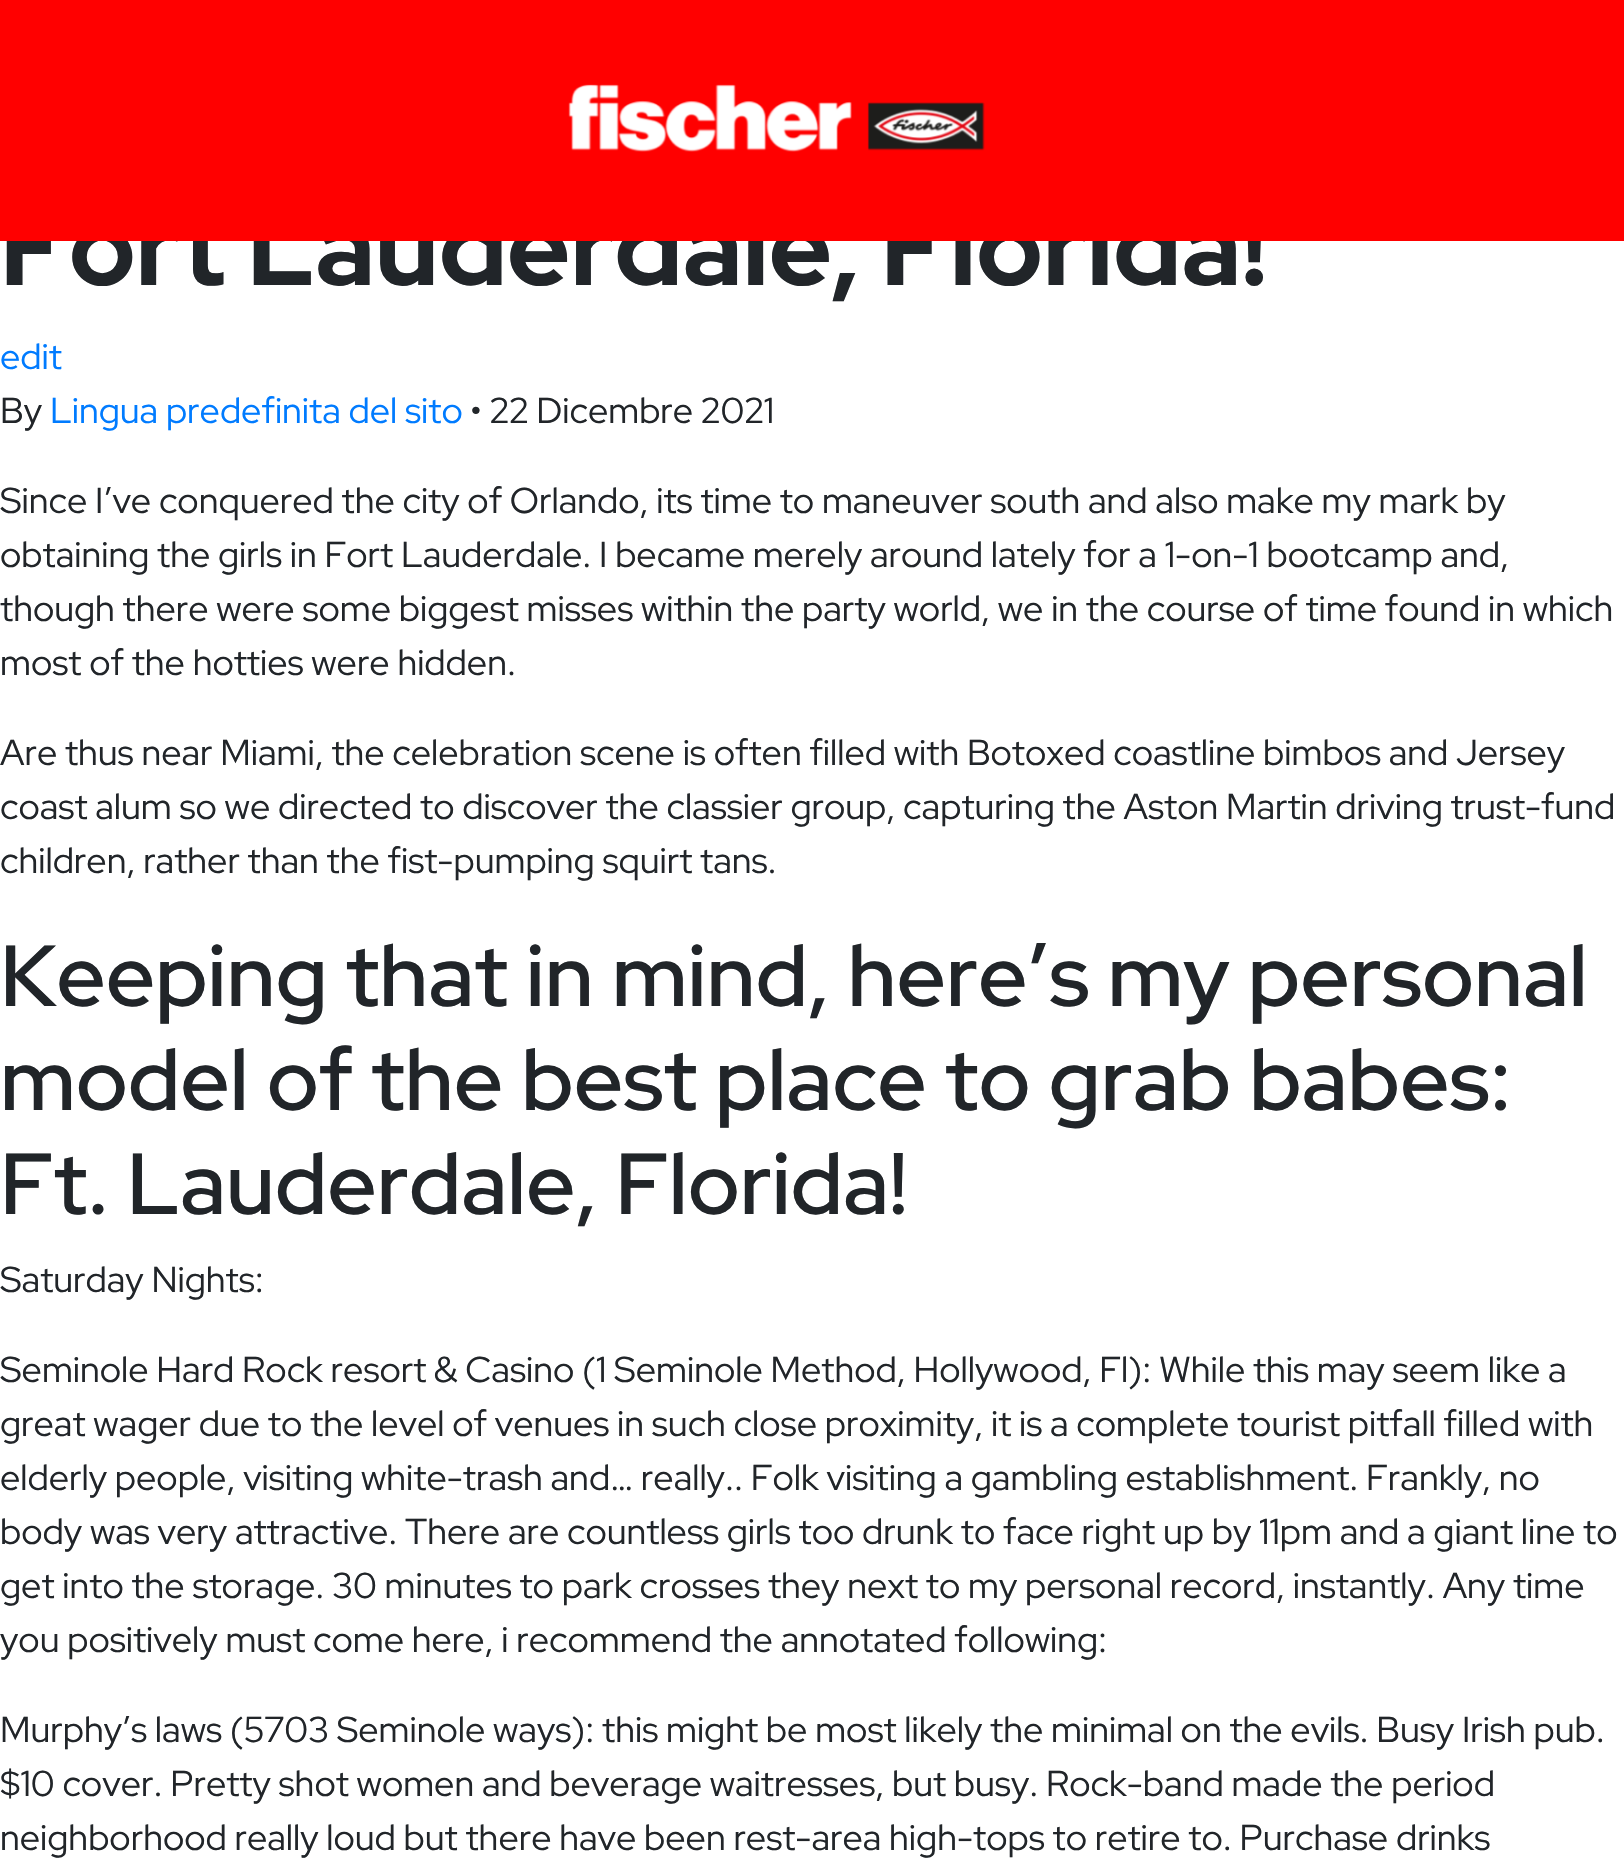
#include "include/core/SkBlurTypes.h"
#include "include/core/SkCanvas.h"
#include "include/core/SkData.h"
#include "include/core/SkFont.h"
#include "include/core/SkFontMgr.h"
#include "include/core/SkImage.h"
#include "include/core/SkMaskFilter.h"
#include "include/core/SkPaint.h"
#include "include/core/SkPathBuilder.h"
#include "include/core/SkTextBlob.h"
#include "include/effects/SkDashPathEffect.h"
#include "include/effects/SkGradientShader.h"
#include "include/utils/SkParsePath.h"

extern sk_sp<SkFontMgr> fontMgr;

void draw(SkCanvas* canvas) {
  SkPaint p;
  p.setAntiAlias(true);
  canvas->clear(SK_ColorWHITE);
  SkFont font1(fontMgr->matchFamilyStyle("Red Hat Display", SkFontStyle::Bold()), 108);
  font1.setSubpixel(true);
  p.setColor(SkColorSetRGB(33, 37, 41));
  canvas->drawString("Fort Lauderdale, Florida!", 0, 285, font1, p);
  p.setColor(SkColorSetRGB(255, 0, 0));
  canvas->drawRect(SkRect::MakeLTRB(0, 0, 1624, 241), p);
  canvas->drawImageRect(SkImages::DeferredFromEncodedData(SkData::MakeFromFileName("images/1.png")), SkRect::MakeLTRB(568, 84, 985, 152), SkSamplingOptions());
  SkFont font2(fontMgr->matchFamilyStyle("Red Hat Display", SkFontStyle::Normal()), 36);
  font2.setSubpixel(true);
  p.setColor(SkColorSetRGB(0, 123, 255));
  canvas->drawString("edit", 0, 369, font2, p);
  p.setColor(SkColorSetRGB(33, 37, 41));
  canvas->drawString("By", 0, 423, font2, p);
  p.setColor(SkColorSetRGB(0, 123, 255));
  canvas->drawString("Lingua predefinita del sito", 50, 423, font2, p);
  p.setColor(SkColorSetRGB(33, 37, 41));
  canvas->drawString("• 22 Dicembre 2021", 470, 423, font2, p);
  canvas->drawString("Since I’ve conquered the city of Orlando, its time to maneuver south and also make my mark by", 0, 513, font2, p);
  canvas->drawString("obtaining the girls in Fort Lauderdale. I became merely around lately for a 1-on-1 bootcamp and,", 0, 567, font2, p);
  canvas->drawString("though there were some biggest misses within the party world, we in the course of time found in which", 0, 621, font2, p);
  canvas->drawString("most of the hotties were hidden.", 0, 675, font2, p);
  canvas->drawString("Are thus near Miami, the celebration scene is often filled with Botoxed coastline bimbos and Jersey", 0, 765, font2, p);
  canvas->drawString("coast alum so we directed to discover the classier group, capturing the Aston Martin driving trust-fund", 0, 819, font2, p);
  canvas->drawString("children, rather than the fist-pumping squirt tans.", 0, 873, font2, p);
  SkFont font3(fontMgr->matchFamilyStyle("Red Hat Display", SkFontStyle(600, SkFontStyle::kNormal_Width, SkFontStyle::kUpright_Slant)), 86.4f);
  font3.setSubpixel(true);
  canvas->drawString("Keeping that in mind, here’s my personal", 0, 1006, font3, p);
  canvas->drawString("model of the best place to grab babes:", 0, 1110, font3, p);
  canvas->drawString("Ft. Lauderdale, Florida!", 0, 1214, font3, p);
  canvas->drawString("Saturday Nights:", 0, 1292, font2, p);
  canvas->drawString("Seminole Hard Rock resort & Casino (1 Seminole Method, Hollywood, Fl): While this may seem like a", 0, 1382, font2, p);
  canvas->drawString("great wager due to the level of venues in such close proximity, it is a complete tourist pitfall filled with", 0, 1436, font2, p);
  canvas->drawString("elderly people, visiting white-trash and… really.. Folk visiting a gambling establishment. Frankly, no", 0, 1490, font2, p);
  canvas->drawString("body was very attractive. There are countless girls too drunk to face right up by 11pm and a giant line to", 0, 1544, font2, p);
  canvas->drawString("get into the storage. 30 minutes to park crosses they next to my personal record, instantly. Any time", 0, 1598, font2, p);
  canvas->drawString("you positively must come here, i recommend the annotated following:", 0, 1652, font2, p);
  canvas->drawString("Murphy’s laws (5703 Seminole ways): this might be most likely the minimal on the evils. Busy Irish pub.", 0, 1742, font2, p);
  canvas->drawString("$10 cover. Pretty shot women and beverage waitresses, but busy. Rock-band made the period", 0, 1796, font2, p);
  canvas->drawString("neighborhood really loud but there have been rest-area high-tops to retire to. Purchase drinks", 0, 1850, font2, p);
}
